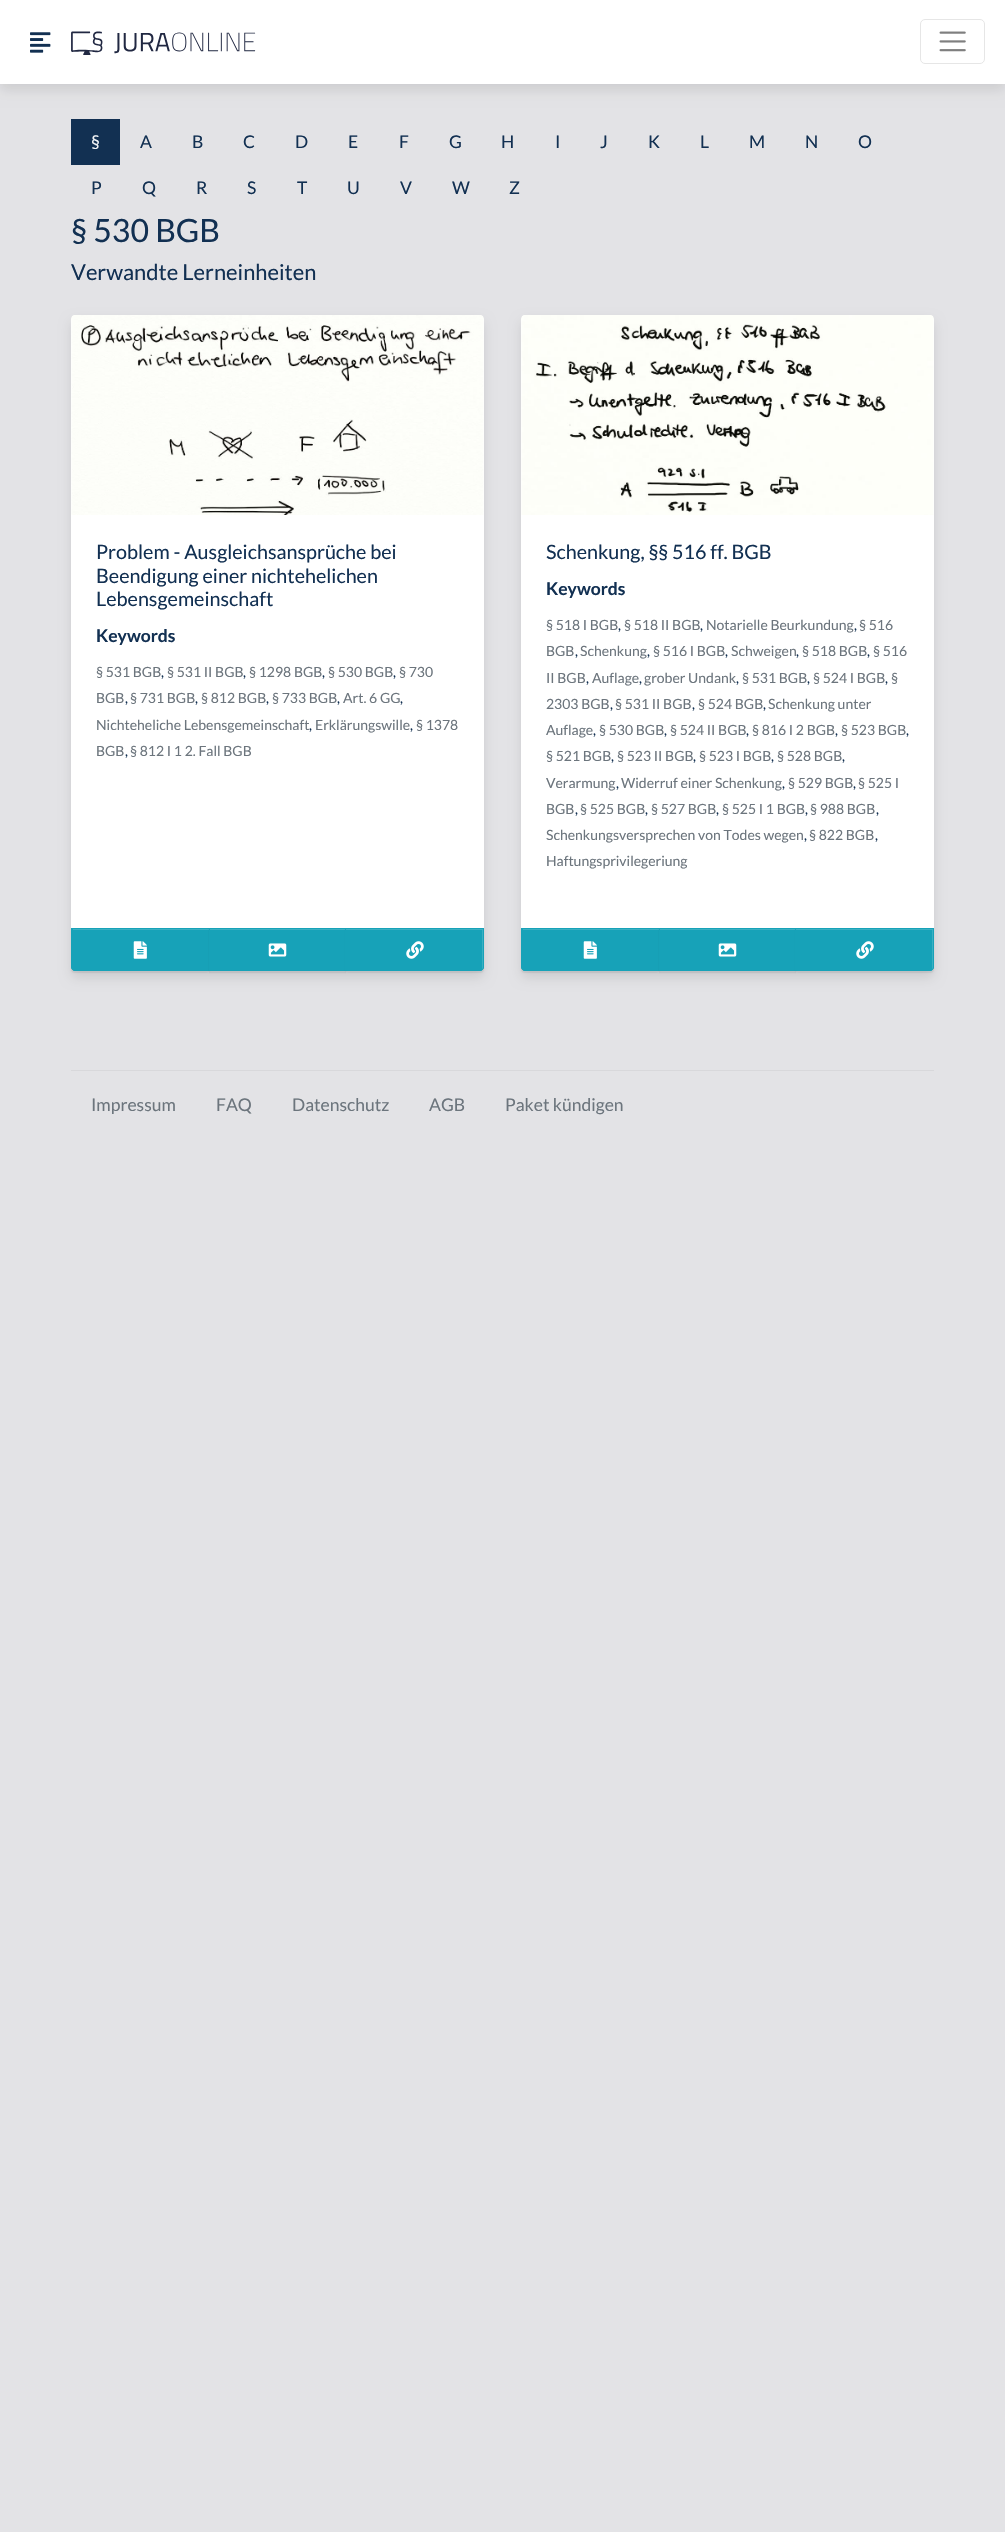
#include "include/core/SkBlurTypes.h"
#include "include/core/SkCanvas.h"
#include "include/core/SkData.h"
#include "include/core/SkFont.h"
#include "include/core/SkFontMgr.h"
#include "include/core/SkImage.h"
#include "include/core/SkMaskFilter.h"
#include "include/core/SkPaint.h"
#include "include/core/SkPathBuilder.h"
#include "include/core/SkTextBlob.h"
#include "include/effects/SkDashPathEffect.h"
#include "include/effects/SkGradientShader.h"
#include "include/utils/SkParsePath.h"

extern sk_sp<SkFontMgr> fontMgr;

void draw(SkCanvas* canvas) {
  SkPaint p;
  p.setAntiAlias(true);
  canvas->clear(SkColorSetRGB(245, 245, 248));
  p.setColor(SkColorSetARGB(26, 0, 0, 0));
  p.setMaskFilter(SkMaskFilter::MakeBlur(kNormal_SkBlurStyle, 6));
  canvas->drawRect(SkRect::MakeLTRB(0, 6, 1005, 90), p);
  p.setMaskFilter(nullptr);
  p.setColor(SK_ColorWHITE);
  canvas->drawRect(SkRect::MakeLTRB(0, 0, 1005, 84), p);
  canvas->drawImageRect(SkImages::DeferredFromEncodedData(SkData::MakeFromFileName("images/1.png")), SkRect::MakeLTRB(30, 32, 51, 53), SkSamplingOptions());
  canvas->drawImageRect(SkImages::DeferredFromEncodedData(SkData::MakeFromFileName("images/2.png")), SkRect::MakeLTRB(71, 31, 256, 55), SkSamplingOptions());
  p.setStyle(SkPaint::kStroke_Style);
  p.setStrokeWidth(1);
  p.setColor(SkColorSetRGB(230, 230, 230));
  canvas->drawRoundRect(SkRect::MakeLTRB(920.5f, 19.5f, 984.5f, 63.5f), 4.5f, 4.5f, p);
  canvas->drawImageRect(SkImages::DeferredFromEncodedData(SkData::MakeFromFileName("images/3.png")), SkRect::MakeLTRB(939, 31, 966, 52), SkSamplingOptions());
  p.setStyle(SkPaint::kFill_Style);
  p.setColor(SkColorSetARGB(18, 0, 0, 0));
  canvas->drawRect(SkRect::MakeLTRB(0, 84, 1005, 2532), p);
  p.setColor(SkColorSetRGB(18, 48, 82));
  canvas->drawRect(SkRect::MakeLTRB(71, 119, 120, 165), p);
  p.setColor(SkColorSetARGB(26, 0, 0, 0));
  p.setMaskFilter(SkMaskFilter::MakeBlur(kNormal_SkBlurStyle, 6));
  canvas->drawRoundRect(SkRect::MakeLTRB(71, 321, 484, 978), 5, 5, p);
  p.setMaskFilter(nullptr);
  p.setColor(SK_ColorWHITE);
  canvas->drawRoundRect(SkRect::MakeLTRB(71, 315, 484, 971), 5, 5, p);
  canvas->drawImageRect(SkImages::DeferredFromEncodedData(SkData::MakeFromFileName("images/4.png")), SkRect::MakeLTRB(71, 315, 484, 515), SkSamplingOptions());
  p.setColor(SkColorSetARGB(18, 0, 0, 0));
  p.setMaskFilter(SkMaskFilter::MakeBlur(kNormal_SkBlurStyle, 0.5f));
  canvas->drawRoundRect(SkRect::MakeLTRB(71, 929, 210, 973), 4, 4, p);
  p.setMaskFilter(nullptr);
  p.setColor(SkColorSetRGB(23, 162, 184));
  canvas->drawPath(SkPathBuilder().moveTo(71, 928).lineTo(210, 928).lineTo(210, 971).lineTo(75, 971).cubicTo(73, 971, 71, 969, 71, 967).close().detach(), p);
  p.setColor(SkColorSetRGB(58, 176, 195));
  canvas->drawRect(SkRect::MakeLTRB(73, 929, 209, 930), p);
  p.setStyle(SkPaint::kStroke_Style);
  p.setColor(SkColorSetRGB(23, 162, 184));
  canvas->drawPath(SkPathBuilder().moveTo(71.5f, 928.5f).lineTo(209.5f, 928.5f).lineTo(209.5f, 970.5f).lineTo(75, 970.5f).cubicTo(73, 970.5f, 71.5f, 969, 71.5f, 967).close().detach(), p);
  canvas->drawImageRect(SkImages::DeferredFromEncodedData(SkData::MakeFromFileName("images/5.png")), SkRect::MakeLTRB(133, 941, 147, 959), SkSamplingOptions());
  p.setStyle(SkPaint::kFill_Style);
  p.setColor(SkColorSetARGB(18, 0, 0, 0));
  p.setMaskFilter(SkMaskFilter::MakeBlur(kNormal_SkBlurStyle, 0.5f));
  canvas->drawRect(SkRect::MakeLTRB(209, 929, 346, 973), p);
  p.setMaskFilter(nullptr);
  p.setColor(SkColorSetRGB(23, 162, 184));
  canvas->drawRect(SkRect::MakeLTRB(209, 928, 345, 971), p);
  p.setColor(SkColorSetRGB(58, 176, 195));
  canvas->drawRect(SkRect::MakeLTRB(210, 929, 345, 930), p);
  canvas->drawImageRect(SkImages::DeferredFromEncodedData(SkData::MakeFromFileName("images/6.png")), SkRect::MakeLTRB(268, 943, 287, 957), SkSamplingOptions());
  p.setColor(SkColorSetARGB(18, 0, 0, 0));
  p.setMaskFilter(SkMaskFilter::MakeBlur(kNormal_SkBlurStyle, 0.5f));
  canvas->drawRoundRect(SkRect::MakeLTRB(345, 929, 484, 973), 4, 4, p);
  p.setMaskFilter(nullptr);
  p.setColor(SkColorSetRGB(23, 162, 184));
  canvas->drawPath(SkPathBuilder().moveTo(345, 928).lineTo(484, 928).lineTo(484, 967).cubicTo(484, 969, 482, 971, 480, 971).lineTo(345, 971).close().detach(), p);
  p.setColor(SkColorSetRGB(58, 176, 195));
  canvas->drawPath(SkPathBuilder().moveTo(346, 930).lineTo(482, 930).lineTo(482, 970).lineTo(483, 968).lineTo(483, 929).lineTo(346, 929).close().detach(), p);
  p.setStyle(SkPaint::kStroke_Style);
  p.setColor(SkColorSetRGB(23, 162, 184));
  canvas->drawPath(SkPathBuilder().moveTo(345.5f, 928.5f).lineTo(483.5f, 928.5f).lineTo(483.5f, 967).cubicTo(483.5f, 969, 482, 970.5f, 480, 970.5f).lineTo(345.5f, 970.5f).close().detach(), p);
  canvas->drawImageRect(SkImages::DeferredFromEncodedData(SkData::MakeFromFileName("images/7.png")), SkRect::MakeLTRB(406, 941, 424, 959), SkSamplingOptions());
  p.setStyle(SkPaint::kFill_Style);
  p.setColor(SkColorSetARGB(26, 0, 0, 0));
  p.setMaskFilter(SkMaskFilter::MakeBlur(kNormal_SkBlurStyle, 6));
  canvas->drawRoundRect(SkRect::MakeLTRB(521, 321, 934, 978), 5, 5, p);
  p.setMaskFilter(nullptr);
  p.setColor(SK_ColorWHITE);
  canvas->drawRoundRect(SkRect::MakeLTRB(521, 315, 934, 971), 5, 5, p);
  canvas->drawImageRect(SkImages::DeferredFromEncodedData(SkData::MakeFromFileName("images/8.png")), SkRect::MakeLTRB(521, 315, 934, 515), SkSamplingOptions());
  p.setColor(SkColorSetARGB(18, 0, 0, 0));
  p.setMaskFilter(SkMaskFilter::MakeBlur(kNormal_SkBlurStyle, 0.5f));
  canvas->drawRoundRect(SkRect::MakeLTRB(521, 929, 660, 973), 4, 4, p);
  p.setMaskFilter(nullptr);
  p.setColor(SkColorSetRGB(23, 162, 184));
  canvas->drawPath(SkPathBuilder().moveTo(521, 928).lineTo(660, 928).lineTo(660, 971).lineTo(525, 971).cubicTo(523, 971, 521, 969, 521, 967).close().detach(), p);
  p.setColor(SkColorSetRGB(58, 176, 195));
  canvas->drawRect(SkRect::MakeLTRB(523, 929, 659, 930), p);
  p.setStyle(SkPaint::kStroke_Style);
  p.setColor(SkColorSetRGB(23, 162, 184));
  canvas->drawPath(SkPathBuilder().moveTo(521.5f, 928.5f).lineTo(659.5f, 928.5f).lineTo(659.5f, 970.5f).lineTo(525, 970.5f).cubicTo(523, 970.5f, 521.5f, 969, 521.5f, 967).close().detach(), p);
  canvas->drawImageRect(SkImages::DeferredFromEncodedData(SkData::MakeFromFileName("images/5.png")), SkRect::MakeLTRB(583, 941, 597, 959), SkSamplingOptions());
  p.setStyle(SkPaint::kFill_Style);
  p.setColor(SkColorSetARGB(18, 0, 0, 0));
  p.setMaskFilter(SkMaskFilter::MakeBlur(kNormal_SkBlurStyle, 0.5f));
  canvas->drawRect(SkRect::MakeLTRB(659, 929, 796, 973), p);
  p.setMaskFilter(nullptr);
  p.setColor(SkColorSetRGB(23, 162, 184));
  canvas->drawRect(SkRect::MakeLTRB(659, 928, 795, 971), p);
  p.setColor(SkColorSetRGB(58, 176, 195));
  canvas->drawRect(SkRect::MakeLTRB(660, 929, 795, 930), p);
  canvas->drawImageRect(SkImages::DeferredFromEncodedData(SkData::MakeFromFileName("images/6.png")), SkRect::MakeLTRB(718, 943, 737, 957), SkSamplingOptions());
  p.setColor(SkColorSetARGB(18, 0, 0, 0));
  p.setMaskFilter(SkMaskFilter::MakeBlur(kNormal_SkBlurStyle, 0.5f));
  canvas->drawRoundRect(SkRect::MakeLTRB(795, 929, 934, 973), 4, 4, p);
  p.setMaskFilter(nullptr);
  p.setColor(SkColorSetRGB(23, 162, 184));
  canvas->drawPath(SkPathBuilder().moveTo(795, 928).lineTo(934, 928).lineTo(934, 967).cubicTo(934, 969, 932, 971, 930, 971).lineTo(795, 971).close().detach(), p);
  p.setColor(SkColorSetRGB(58, 176, 195));
  canvas->drawPath(SkPathBuilder().moveTo(796, 930).lineTo(932, 930).lineTo(932, 970).lineTo(933, 968).lineTo(933, 929).lineTo(796, 929).close().detach(), p);
  p.setStyle(SkPaint::kStroke_Style);
  p.setColor(SkColorSetRGB(23, 162, 184));
  canvas->drawPath(SkPathBuilder().moveTo(795.5f, 928.5f).lineTo(933.5f, 928.5f).lineTo(933.5f, 967).cubicTo(933.5f, 969, 932, 970.5f, 930, 970.5f).lineTo(795.5f, 970.5f).close().detach(), p);
  canvas->drawImageRect(SkImages::DeferredFromEncodedData(SkData::MakeFromFileName("images/7.png")), SkRect::MakeLTRB(856, 941, 874, 959), SkSamplingOptions());
  p.setStyle(SkPaint::kFill_Style);
  p.setColor(SkColorSetRGB(216, 216, 219));
  canvas->drawPath(SkPathBuilder().moveTo(71, 1070).lineTo(71, 1136).lineTo(71, 1071).lineTo(934, 1071).lineTo(934, 1136).lineTo(934, 1070).close().detach(), p);
  SkFont font1(fontMgr->matchFamilyStyle("Lato", SkFontStyle::Normal()), 17.5f);
  font1.setSubpixel(true);
  p.setColor(SkColorSetRGB(242, 244, 246));
  canvas->drawString("§", 91, 148, font1, p);
  p.setColor(SkColorSetRGB(18, 48, 82));
  canvas->drawString("A", 140, 148, font1, p);
  canvas->drawString("B", 192, 148, font1, p);
  canvas->drawString("C", 243, 148, font1, p);
  canvas->drawString("D", 295, 148, font1, p);
  canvas->drawString("E", 348, 148, font1, p);
  canvas->drawString("F", 399, 148, font1, p);
  canvas->drawString("G", 449, 148, font1, p);
  canvas->drawString("H", 501, 148, font1, p);
  canvas->drawString("I", 555, 148, font1, p);
  canvas->drawString("J", 600, 148, font1, p);
  canvas->drawString("K", 648, 148, font1, p);
  canvas->drawString("L", 700, 148, font1, p);
  canvas->drawString("M", 749, 148, font1, p);
  canvas->drawString("N", 805, 148, font1, p);
  canvas->drawString("O", 858, 148, font1, p);
  canvas->drawString("P", 91, 194, font1, p);
  canvas->drawString("Q", 142, 194, font1, p);
  canvas->drawString("R", 196, 194, font1, p);
  canvas->drawString("S", 247, 194, font1, p);
  canvas->drawString("T", 297, 194, font1, p);
  canvas->drawString("U", 347, 194, font1, p);
  canvas->drawString("V", 400, 194, font1, p);
  canvas->drawString("W", 452, 194, font1, p);
  canvas->drawString("Z", 509, 194, font1, p);
  SkFont font2(fontMgr->matchFamilyStyle("Lato", SkFontStyle::Normal()), 32);
  font2.setSubpixel(true);
  canvas->drawString("§ 530 BGB", 71, 242, font2, p);
  SkFont font3(fontMgr->matchFamilyStyle("Lato", SkFontStyle::Normal()), 21.9f);
  font3.setSubpixel(true);
  canvas->drawString("Verwandte Lerneinheiten", 71, 280, font3, p);
  SkFont font4(fontMgr->matchFamilyStyle("Lato", SkFontStyle::Normal()), 19.75f);
  font4.setSubpixel(true);
  canvas->drawString("Problem - Ausgleichsansprüche bei", 96, 559, font4, p);
  canvas->drawString("Beendigung einer nichtehelichen", 96, 583, font4, p);
  canvas->drawString("Lebensgemeinschaft", 96, 606, font4, p);
  SkFont font5(fontMgr->matchFamilyStyle("Lato", SkFontStyle::Bold()), 17.5f);
  font5.setSubpixel(true);
  canvas->drawString("Keywords", 96, 642, font5, p);
  SkFont font6(fontMgr->matchFamilyStyle("Lato", SkFontStyle::Normal()), 14);
  font6.setSubpixel(true);
  p.setColor(SkColorSetRGB(108, 117, 125));
  canvas->drawString("§ 531 BGB", 96, 677, font6, p);
  p.setColor(SkColorSetRGB(18, 48, 82));
  canvas->drawString(",", 161, 677, font6, p);
  p.setColor(SkColorSetRGB(108, 117, 125));
  canvas->drawString("§ 531 II BGB", 167, 677, font6, p);
  p.setColor(SkColorSetRGB(18, 48, 82));
  canvas->drawString(",", 243, 677, font6, p);
  p.setColor(SkColorSetRGB(108, 117, 125));
  canvas->drawString("§ 1298 BGB", 249, 677, font6, p);
  p.setColor(SkColorSetRGB(18, 48, 82));
  canvas->drawString(",", 322, 677, font6, p);
  p.setColor(SkColorSetRGB(108, 117, 125));
  canvas->drawString("§ 530 BGB", 328, 677, font6, p);
  p.setColor(SkColorSetRGB(18, 48, 82));
  canvas->drawString(",", 393, 677, font6, p);
  p.setColor(SkColorSetRGB(108, 117, 125));
  canvas->drawString("§ 730", 399, 677, font6, p);
  canvas->drawString("BGB", 96, 703, font6, p);
  p.setColor(SkColorSetRGB(18, 48, 82));
  canvas->drawString(",", 125, 703, font6, p);
  p.setColor(SkColorSetRGB(108, 117, 125));
  canvas->drawString("§ 731 BGB", 130, 703, font6, p);
  p.setColor(SkColorSetRGB(18, 48, 82));
  canvas->drawString(",", 195, 703, font6, p);
  p.setColor(SkColorSetRGB(108, 117, 125));
  canvas->drawString("§ 812 BGB", 201, 703, font6, p);
  p.setColor(SkColorSetRGB(18, 48, 82));
  canvas->drawString(",", 266, 703, font6, p);
  p.setColor(SkColorSetRGB(108, 117, 125));
  canvas->drawString("§ 733 BGB", 272, 703, font6, p);
  p.setColor(SkColorSetRGB(18, 48, 82));
  canvas->drawString(",", 337, 703, font6, p);
  p.setColor(SkColorSetRGB(108, 117, 125));
  canvas->drawString("Art. 6 GG", 343, 703, font6, p);
  p.setColor(SkColorSetRGB(18, 48, 82));
  canvas->drawString(",", 400, 703, font6, p);
  p.setColor(SkColorSetRGB(108, 117, 125));
  canvas->drawString("Nichteheliche Lebensgemeinschaft", 96, 730, font6, p);
  p.setColor(SkColorSetRGB(18, 48, 82));
  canvas->drawString(",", 309, 730, font6, p);
  p.setColor(SkColorSetRGB(108, 117, 125));
  canvas->drawString("Erklärungswille", 315, 730, font6, p);
  p.setColor(SkColorSetRGB(18, 48, 82));
  canvas->drawString(",", 410, 730, font6, p);
  p.setColor(SkColorSetRGB(108, 117, 125));
  canvas->drawString("§ 1378", 416, 730, font6, p);
  canvas->drawString("BGB", 96, 756, font6, p);
  p.setColor(SkColorSetRGB(18, 48, 82));
  canvas->drawString(",", 125, 756, font6, p);
  p.setColor(SkColorSetRGB(108, 117, 125));
  canvas->drawString("§ 812 I 1 2. Fall BGB", 130, 756, font6, p);
  p.setColor(SkColorSetRGB(18, 48, 82));
  canvas->drawString("Schenkung, §§ 516 ff. BGB", 546, 559, font4, p);
  canvas->drawString("Keywords", 546, 595, font5, p);
  p.setColor(SkColorSetRGB(108, 117, 125));
  canvas->drawString("§ 518 I BGB", 546, 630, font6, p);
  p.setColor(SkColorSetRGB(18, 48, 82));
  canvas->drawString(",", 618, 630, font6, p);
  p.setColor(SkColorSetRGB(108, 117, 125));
  canvas->drawString("§ 518 II BGB", 624, 630, font6, p);
  p.setColor(SkColorSetRGB(18, 48, 82));
  canvas->drawString(",", 700, 630, font6, p);
  p.setColor(SkColorSetRGB(108, 117, 125));
  canvas->drawString("Notarielle Beurkundung", 706, 630, font6, p);
  p.setColor(SkColorSetRGB(18, 48, 82));
  canvas->drawString(",", 854, 630, font6, p);
  p.setColor(SkColorSetRGB(108, 117, 125));
  canvas->drawString("§ 516", 859, 630, font6, p);
  canvas->drawString("BGB", 546, 656, font6, p);
  p.setColor(SkColorSetRGB(18, 48, 82));
  canvas->drawString(",", 575, 656, font6, p);
  p.setColor(SkColorSetRGB(108, 117, 125));
  canvas->drawString("Schenkung", 580, 656, font6, p);
  p.setColor(SkColorSetRGB(18, 48, 82));
  canvas->drawString(",", 647, 656, font6, p);
  p.setColor(SkColorSetRGB(108, 117, 125));
  canvas->drawString("§ 516 I BGB", 653, 656, font6, p);
  p.setColor(SkColorSetRGB(18, 48, 82));
  canvas->drawString(",", 725, 656, font6, p);
  p.setColor(SkColorSetRGB(108, 117, 125));
  canvas->drawString("Schweigen", 731, 656, font6, p);
  p.setColor(SkColorSetRGB(18, 48, 82));
  canvas->drawString(",", 796, 656, font6, p);
  p.setColor(SkColorSetRGB(108, 117, 125));
  canvas->drawString("§ 518 BGB", 802, 656, font6, p);
  p.setColor(SkColorSetRGB(18, 48, 82));
  canvas->drawString(",", 867, 656, font6, p);
  p.setColor(SkColorSetRGB(108, 117, 125));
  canvas->drawString("§ 516", 873, 656, font6, p);
  canvas->drawString("II BGB", 546, 683, font6, p);
  p.setColor(SkColorSetRGB(18, 48, 82));
  canvas->drawString(",", 586, 683, font6, p);
  p.setColor(SkColorSetRGB(108, 117, 125));
  canvas->drawString("Auflage", 592, 683, font6, p);
  p.setColor(SkColorSetRGB(18, 48, 82));
  canvas->drawString(",", 639, 683, font6, p);
  p.setColor(SkColorSetRGB(108, 117, 125));
  canvas->drawString("grober Undank", 644, 683, font6, p);
  p.setColor(SkColorSetRGB(18, 48, 82));
  canvas->drawString(",", 736, 683, font6, p);
  p.setColor(SkColorSetRGB(108, 117, 125));
  canvas->drawString("§ 531 BGB", 742, 683, font6, p);
  p.setColor(SkColorSetRGB(18, 48, 82));
  canvas->drawString(",", 807, 683, font6, p);
  p.setColor(SkColorSetRGB(108, 117, 125));
  canvas->drawString("§ 524 I BGB", 813, 683, font6, p);
  p.setColor(SkColorSetRGB(18, 48, 82));
  canvas->drawString(",", 885, 683, font6, p);
  p.setColor(SkColorSetRGB(108, 117, 125));
  canvas->drawString("§", 891, 683, font6, p);
  canvas->drawString("2303 BGB", 546, 709, font6, p);
  p.setColor(SkColorSetRGB(18, 48, 82));
  canvas->drawString(",", 610, 709, font6, p);
  p.setColor(SkColorSetRGB(108, 117, 125));
  canvas->drawString("§ 531 II BGB", 615, 709, font6, p);
  p.setColor(SkColorSetRGB(18, 48, 82));
  canvas->drawString(",", 692, 709, font6, p);
  p.setColor(SkColorSetRGB(108, 117, 125));
  canvas->drawString("§ 524 BGB", 698, 709, font6, p);
  p.setColor(SkColorSetRGB(18, 48, 82));
  canvas->drawString(",", 763, 709, font6, p);
  p.setColor(SkColorSetRGB(108, 117, 125));
  canvas->drawString("Schenkung unter", 768, 709, font6, p);
  canvas->drawString("Auflage", 546, 735, font6, p);
  p.setColor(SkColorSetRGB(18, 48, 82));
  canvas->drawString(",", 593, 735, font6, p);
  p.setColor(SkColorSetRGB(108, 117, 125));
  canvas->drawString("§ 530 BGB", 599, 735, font6, p);
  p.setColor(SkColorSetRGB(18, 48, 82));
  canvas->drawString(",", 664, 735, font6, p);
  p.setColor(SkColorSetRGB(108, 117, 125));
  canvas->drawString("§ 524 II BGB", 670, 735, font6, p);
  p.setColor(SkColorSetRGB(18, 48, 82));
  canvas->drawString(",", 746, 735, font6, p);
  p.setColor(SkColorSetRGB(108, 117, 125));
  canvas->drawString("§ 816 I 2 BGB", 752, 735, font6, p);
  p.setColor(SkColorSetRGB(18, 48, 82));
  canvas->drawString(",", 835, 735, font6, p);
  p.setColor(SkColorSetRGB(108, 117, 125));
  canvas->drawString("§ 523 BGB", 841, 735, font6, p);
  p.setColor(SkColorSetRGB(18, 48, 82));
  canvas->drawString(",", 906, 735, font6, p);
  p.setColor(SkColorSetRGB(108, 117, 125));
  canvas->drawString("§ 521 BGB", 546, 761, font6, p);
  p.setColor(SkColorSetRGB(18, 48, 82));
  canvas->drawString(",", 611, 761, font6, p);
  p.setColor(SkColorSetRGB(108, 117, 125));
  canvas->drawString("§ 523 II BGB", 617, 761, font6, p);
  p.setColor(SkColorSetRGB(18, 48, 82));
  canvas->drawString(",", 693, 761, font6, p);
  p.setColor(SkColorSetRGB(108, 117, 125));
  canvas->drawString("§ 523 I BGB", 699, 761, font6, p);
  p.setColor(SkColorSetRGB(18, 48, 82));
  canvas->drawString(",", 771, 761, font6, p);
  p.setColor(SkColorSetRGB(108, 117, 125));
  canvas->drawString("§ 528 BGB", 777, 761, font6, p);
  p.setColor(SkColorSetRGB(18, 48, 82));
  canvas->drawString(",", 842, 761, font6, p);
  p.setColor(SkColorSetRGB(108, 117, 125));
  canvas->drawString("Verarmung", 546, 788, font6, p);
  p.setColor(SkColorSetRGB(18, 48, 82));
  canvas->drawString(",", 616, 788, font6, p);
  p.setColor(SkColorSetRGB(108, 117, 125));
  canvas->drawString("Widerruf einer Schenkung", 621, 788, font6, p);
  p.setColor(SkColorSetRGB(18, 48, 82));
  canvas->drawString(",", 782, 788, font6, p);
  p.setColor(SkColorSetRGB(108, 117, 125));
  canvas->drawString("§ 529 BGB", 788, 788, font6, p);
  p.setColor(SkColorSetRGB(18, 48, 82));
  canvas->drawString(",", 853, 788, font6, p);
  p.setColor(SkColorSetRGB(108, 117, 125));
  canvas->drawString("§ 525 I", 858, 788, font6, p);
  canvas->drawString("BGB", 546, 814, font6, p);
  p.setColor(SkColorSetRGB(18, 48, 82));
  canvas->drawString(",", 575, 814, font6, p);
  p.setColor(SkColorSetRGB(108, 117, 125));
  canvas->drawString("§ 525 BGB", 580, 814, font6, p);
  p.setColor(SkColorSetRGB(18, 48, 82));
  canvas->drawString(",", 645, 814, font6, p);
  p.setColor(SkColorSetRGB(108, 117, 125));
  canvas->drawString("§ 527 BGB", 651, 814, font6, p);
  p.setColor(SkColorSetRGB(18, 48, 82));
  canvas->drawString(",", 716, 814, font6, p);
  p.setColor(SkColorSetRGB(108, 117, 125));
  canvas->drawString("§ 525 I 1 BGB", 722, 814, font6, p);
  p.setColor(SkColorSetRGB(18, 48, 82));
  canvas->drawString(",", 805, 814, font6, p);
  p.setColor(SkColorSetRGB(108, 117, 125));
  canvas->drawString("§ 988 BGB", 810, 814, font6, p);
  p.setColor(SkColorSetRGB(18, 48, 82));
  canvas->drawString(",", 876, 814, font6, p);
  p.setColor(SkColorSetRGB(108, 117, 125));
  canvas->drawString("Schenkungsversprechen von Todes wegen", 546, 840, font6, p);
  p.setColor(SkColorSetRGB(18, 48, 82));
  canvas->drawString(",", 804, 840, font6, p);
  p.setColor(SkColorSetRGB(108, 117, 125));
  canvas->drawString("§ 822 BGB", 809, 840, font6, p);
  p.setColor(SkColorSetRGB(18, 48, 82));
  canvas->drawString(",", 875, 840, font6, p);
  p.setColor(SkColorSetRGB(108, 117, 125));
  canvas->drawString("Haftungsprivilegeriung", 546, 866, font6, p);
  canvas->drawString("Impressum", 91, 1111, font1, p);
  canvas->drawString("FAQ", 216, 1111, font1, p);
  canvas->drawString("Datenschutz", 292, 1111, font1, p);
  canvas->drawString("AGB", 429, 1111, font1, p);
  canvas->drawString("Paket kündigen", 505, 1111, font1, p);
}
